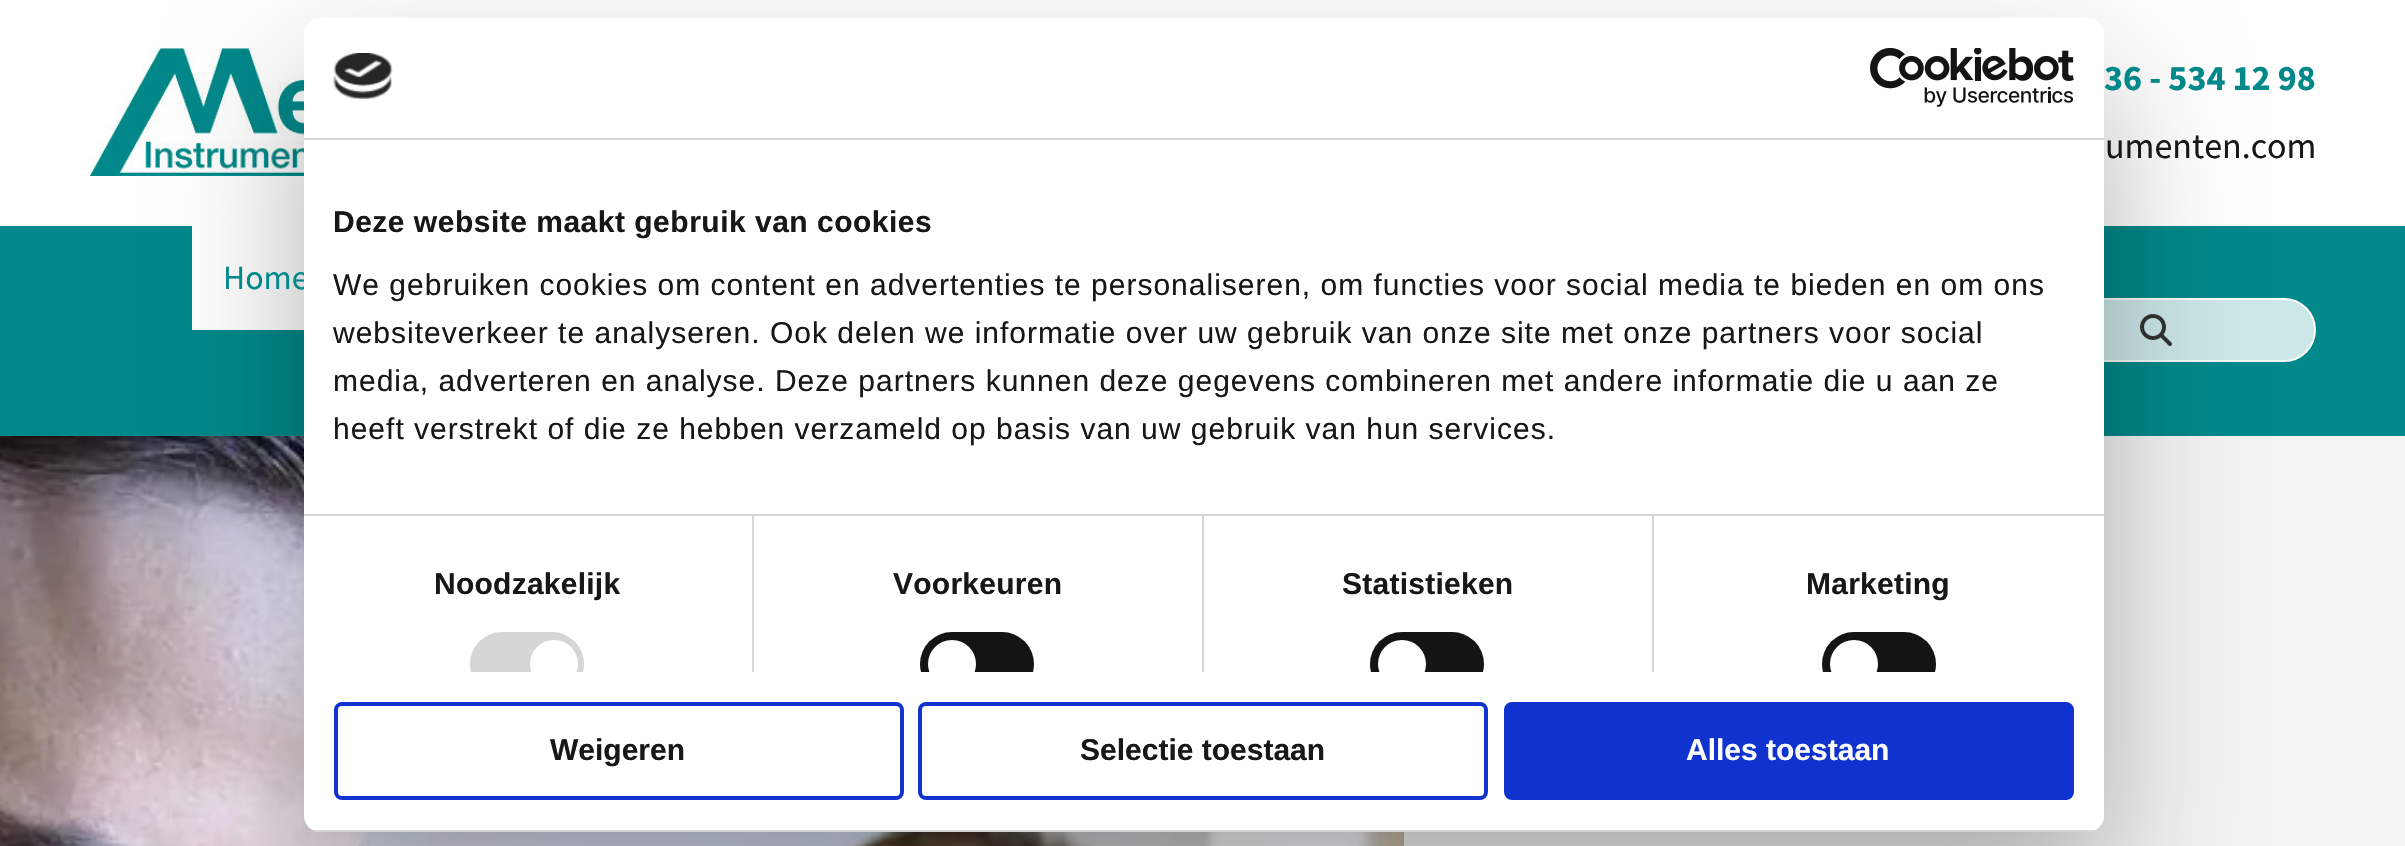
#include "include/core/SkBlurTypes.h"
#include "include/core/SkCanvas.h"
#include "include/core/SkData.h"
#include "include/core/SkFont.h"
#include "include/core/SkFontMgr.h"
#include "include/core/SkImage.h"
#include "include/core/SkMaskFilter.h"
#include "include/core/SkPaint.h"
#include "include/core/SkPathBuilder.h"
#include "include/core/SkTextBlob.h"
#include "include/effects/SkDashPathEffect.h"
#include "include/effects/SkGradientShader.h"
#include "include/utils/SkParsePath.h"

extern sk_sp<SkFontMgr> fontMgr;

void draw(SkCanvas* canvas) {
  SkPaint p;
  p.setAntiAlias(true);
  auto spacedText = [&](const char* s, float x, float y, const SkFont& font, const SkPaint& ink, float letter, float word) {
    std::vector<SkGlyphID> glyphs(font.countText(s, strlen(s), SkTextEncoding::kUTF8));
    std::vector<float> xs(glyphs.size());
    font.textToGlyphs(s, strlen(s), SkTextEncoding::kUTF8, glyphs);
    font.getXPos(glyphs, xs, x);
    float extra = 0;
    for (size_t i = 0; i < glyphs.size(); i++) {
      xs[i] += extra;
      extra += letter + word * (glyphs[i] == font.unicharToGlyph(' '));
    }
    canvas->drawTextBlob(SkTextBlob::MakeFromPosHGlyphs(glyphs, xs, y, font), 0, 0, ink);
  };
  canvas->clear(SK_ColorWHITE);
  canvas->drawImageRect(SkImages::DeferredFromEncodedData(SkData::MakeFromFileName("images/1.png")), SkRect::MakeLTRB(90, 48, 304, 176), SkSamplingOptions());
  p.setColor(SkColorSetRGB(0, 136, 138));
  canvas->drawRect(SkRect::MakeLTRB(0, 226, 2405, 436), p);
  p.setColor(SK_ColorWHITE);
  canvas->drawRect(SkRect::MakeLTRB(192, 226, 304, 330), p);
  p.setColor(SkColorSetRGB(204, 231, 232));
  canvas->drawRoundRect(SkRect::MakeLTRB(1997, 299, 2315, 361), 31, 31, p);
  p.setStyle(SkPaint::kStroke_Style);
  p.setStrokeWidth(2);
  p.setColor(SkColorSetRGB(250, 250, 250));
  canvas->drawRoundRect(SkRect::MakeLTRB(1997, 299, 2315, 361), 31, 31, p);
  canvas->drawImageRect(SkImages::DeferredFromEncodedData(SkData::MakeFromFileName("images/2.png")), SkRect::MakeLTRB(2140, 314, 2172, 346), SkSamplingOptions());
  canvas->drawImageRect(SkImages::DeferredFromEncodedData(SkData::MakeFromFileName("images/3.png")), SkRect::MakeLTRB(0, 436, 1404, 846), SkSamplingOptions());
  p.setStyle(SkPaint::kFill_Style);
  p.setColor(SkColorSetRGB(243, 243, 243));
  canvas->drawRect(SkRect::MakeLTRB(1404, 436, 2405, 846), p);
  p.setColor(SkColorSetARGB(77, 0, 0, 0));
  p.setMaskFilter(SkMaskFilter::MakeBlur(kNormal_SkBlurStyle, 68));
  canvas->drawRoundRect(SkRect::MakeLTRB(304, 82, 2104, 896), 16, 16, p);
  p.setMaskFilter(nullptr);
  SkFont font1(fontMgr->matchFamilyStyle("Source Sans Pro", SkFontStyle::Bold()), 36);
  font1.setSubpixel(true);
  p.setColor(SkColorSetRGB(0, 136, 138));
  canvas->drawString("36 - 534 12 98", 2104, 90, font1, p);
  SkFont font2(fontMgr->matchFamilyStyle("Source Sans Pro", SkFontStyle::Normal()), 36);
  font2.setSubpixel(true);
  p.setColor(SkColorSetRGB(23, 23, 23));
  canvas->drawString("umenten.com", 2105, 158, font2, p);
  SkFont font3(fontMgr->matchFamilyStyle("Source Sans Pro", SkFontStyle::Normal()), 34);
  font3.setSubpixel(true);
  p.setColor(SkColorSetRGB(0, 136, 138));
  canvas->drawString("Home", 223, 289, font3, p);
  p.setColor(SK_ColorWHITE);
  canvas->drawRoundRect(SkRect::MakeLTRB(304, 18, 2104, 832), 16, 16, p);
  p.setColor(SkColorSetRGB(214, 214, 214));
  canvas->drawRect(SkRect::MakeLTRB(304, 138, 2104, 140), p);
  canvas->drawImageRect(SkImages::DeferredFromEncodedData(SkData::MakeFromFileName("images/4.png")), SkRect::MakeLTRB(333, 53, 393, 99), SkSamplingOptions());
  canvas->drawImageRect(SkImages::DeferredFromEncodedData(SkData::MakeFromFileName("images/5.png")), SkRect::MakeLTRB(1870, 48, 2074, 107), SkSamplingOptions());
  canvas->drawRect(SkRect::MakeLTRB(304, 514, 2104, 516), p);
  SkFont font4(fontMgr->matchFamilyStyle("Liberation Sans", SkFontStyle::Bold()), 30);
  font4.setSubpixel(true);
  p.setColor(SkColorSetRGB(23, 23, 23));
  spacedText("Deze website maakt gebruik van cookies", 333, 232, font4, p, 0.5f, 0);
  SkFont font5(fontMgr->matchFamilyStyle("Liberation Sans", SkFontStyle::Normal()), 30);
  font5.setSubpixel(true);
  spacedText("We gebruiken cookies om content en advertenties te personaliseren, om functies voor social media te bieden en om ons", 333, 295, font5, p, 1, 0);
  spacedText("websiteverkeer te analyseren. Ook delen we informatie over uw gebruik van onze site met onze partners voor social", 333, 343, font5, p, 1, 0);
  spacedText("media, adverteren en analyse. Deze partners kunnen deze gegevens combineren met andere informatie die u aan ze", 333, 391, font5, p, 1, 0);
  spacedText("heeft verstrekt of die ze hebben verzameld op basis van uw gebruik van hun services.", 333, 439, font5, p, 1, 0);
  p.setColor(SkColorSetRGB(214, 214, 214));
  canvas->drawRect(SkRect::MakeLTRB(752, 516, 754, 672), p);
  p.setColor(SkColorSetRGB(23, 23, 23));
  spacedText("Noodzakelijk", 434, 594, font4, p, 0.25f, 0);
  canvas->save();
  canvas->clipRect(SkRect::MakeLTRB(304, 140, 2104, 672));
  p.setColor(SkColorSetRGB(214, 214, 214));
  canvas->drawRoundRect(SkRect::MakeLTRB(470, 632, 584, 696), 32, 32, p);
  p.setColor(SK_ColorWHITE);
  canvas->drawCircle(554, 664, 24, p);
  canvas->restore();
  p.setColor(SkColorSetRGB(214, 214, 214));
  canvas->drawRect(SkRect::MakeLTRB(1202, 516, 1204, 672), p);
  p.setColor(SkColorSetRGB(23, 23, 23));
  spacedText("Voorkeuren", 893, 594, font4, p, 0.25f, 0);
  canvas->save();
  canvas->clipRect(SkRect::MakeLTRB(304, 140, 2104, 672));
  p.setColor(SkColorSetRGB(20, 20, 20));
  canvas->drawRoundRect(SkRect::MakeLTRB(920, 632, 1034, 696), 32, 32, p);
  p.setColor(SK_ColorWHITE);
  canvas->drawCircle(952, 664, 24, p);
  canvas->restore();
  p.setColor(SkColorSetRGB(214, 214, 214));
  canvas->drawRect(SkRect::MakeLTRB(1652, 516, 1654, 672), p);
  p.setColor(SkColorSetRGB(23, 23, 23));
  spacedText("Statistieken", 1342, 594, font4, p, 0.25f, 0);
  canvas->save();
  canvas->clipRect(SkRect::MakeLTRB(304, 140, 2104, 672));
  p.setColor(SkColorSetRGB(20, 20, 20));
  canvas->drawRoundRect(SkRect::MakeLTRB(1370, 632, 1484, 696), 32, 32, p);
  p.setColor(SK_ColorWHITE);
  canvas->drawCircle(1402, 664, 24, p);
  canvas->restore();
  p.setColor(SkColorSetRGB(23, 23, 23));
  spacedText("Marketing", 1806, 594, font4, p, 0.25f, 0);
  canvas->save();
  canvas->clipRect(SkRect::MakeLTRB(304, 140, 2104, 672));
  p.setColor(SkColorSetRGB(20, 20, 20));
  canvas->drawRoundRect(SkRect::MakeLTRB(1822, 632, 1936, 696), 32, 32, p);
  p.setColor(SK_ColorWHITE);
  canvas->drawCircle(1854, 664, 24, p);
  canvas->restore();
  canvas->save();
  canvas->clipPath(SkPathBuilder().moveTo(320, 18).lineTo(2088, 18).cubicTo(2097, 18, 2104, 25, 2104, 34).lineTo(2104, 816).cubicTo(2104, 825, 2097, 832, 2088, 832).lineTo(320, 832).cubicTo(311, 832, 304, 825, 304, 816).lineTo(304, 34).cubicTo(304, 25, 311, 18, 320, 18).close().detach(), true);
  p.setColor(SkColorSetRGB(214, 214, 214));
  canvas->drawRect(SkRect::MakeLTRB(304, 830, 2104, 832), p);
  canvas->restore();
  p.setStyle(SkPaint::kStroke_Style);
  p.setStrokeWidth(4);
  p.setColor(SkColorSetRGB(16, 50, 207));
  canvas->drawRoundRect(SkRect::MakeLTRB(336, 704, 902, 798), 6, 6, p);
  p.setStyle(SkPaint::kFill_Style);
  p.setColor(SkColorSetRGB(23, 23, 23));
  canvas->drawString("Weigeren", 550, 760, font4, p);
  p.setStyle(SkPaint::kStroke_Style);
  p.setColor(SkColorSetRGB(16, 50, 207));
  canvas->drawRoundRect(SkRect::MakeLTRB(920, 704, 1486, 798), 6, 6, p);
  p.setStyle(SkPaint::kFill_Style);
  p.setColor(SkColorSetRGB(23, 23, 23));
  canvas->drawString("Selectie toestaan", 1080, 760, font4, p);
  p.setColor(SkColorSetRGB(16, 50, 207));
  canvas->drawRoundRect(SkRect::MakeLTRB(1506, 704, 2072, 798), 6, 6, p);
  p.setStyle(SkPaint::kStroke_Style);
  canvas->drawRoundRect(SkRect::MakeLTRB(1506, 704, 2072, 798), 6, 6, p);
  p.setStyle(SkPaint::kFill_Style);
  p.setColor(SK_ColorWHITE);
  canvas->drawString("Alles toestaan", 1686, 760, font4, p);
}
